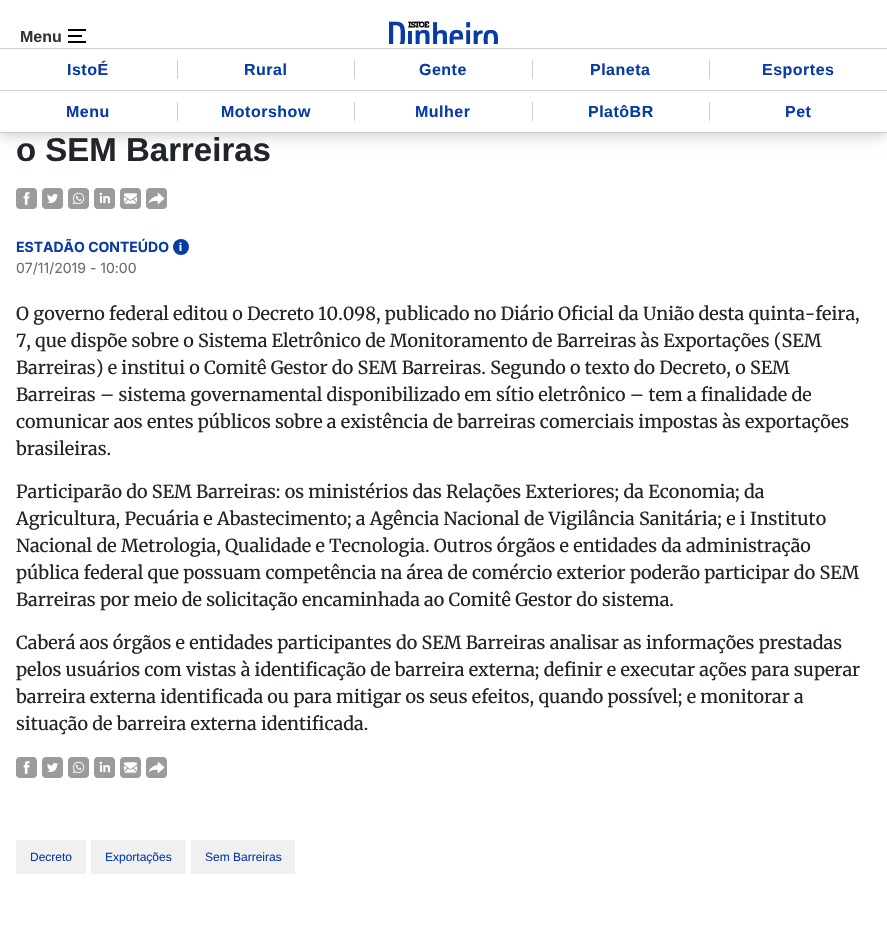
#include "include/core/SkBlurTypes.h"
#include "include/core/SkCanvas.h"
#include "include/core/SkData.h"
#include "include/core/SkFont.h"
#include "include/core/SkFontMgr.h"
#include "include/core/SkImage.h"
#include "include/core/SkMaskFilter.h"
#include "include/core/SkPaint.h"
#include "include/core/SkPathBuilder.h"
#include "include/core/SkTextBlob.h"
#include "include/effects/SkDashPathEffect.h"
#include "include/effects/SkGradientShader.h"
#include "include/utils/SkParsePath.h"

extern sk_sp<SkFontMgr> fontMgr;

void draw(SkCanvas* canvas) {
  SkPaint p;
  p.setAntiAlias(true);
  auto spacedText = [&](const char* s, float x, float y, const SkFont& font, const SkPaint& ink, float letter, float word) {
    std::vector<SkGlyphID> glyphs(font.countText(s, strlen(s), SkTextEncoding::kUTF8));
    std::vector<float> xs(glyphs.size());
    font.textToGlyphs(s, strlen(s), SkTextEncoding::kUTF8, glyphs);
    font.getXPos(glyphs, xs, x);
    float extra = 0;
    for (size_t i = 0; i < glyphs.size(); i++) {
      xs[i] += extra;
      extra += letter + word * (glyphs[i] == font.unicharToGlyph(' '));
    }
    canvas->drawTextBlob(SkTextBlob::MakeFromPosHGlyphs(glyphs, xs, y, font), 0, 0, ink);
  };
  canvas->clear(SK_ColorWHITE);
  p.setColor(SkColorSetRGB(188, 188, 188));
  p.setMaskFilter(SkMaskFilter::MakeBlur(kNormal_SkBlurStyle, 7.5f));
  canvas->drawRect(SkRect::MakeLTRB(0, 0, 887, 133), p);
  p.setMaskFilter(nullptr);
  p.setColor(SK_ColorWHITE);
  canvas->drawRect(SkRect::MakeLTRB(0, 0, 887, 132), p);
  p.setColor(SK_ColorBLACK);
  canvas->drawRect(SkRect::MakeLTRB(68, 29, 86, 31), p);
  canvas->drawRect(SkRect::MakeLTRB(68, 41, 86, 43), p);
  canvas->drawRect(SkRect::MakeLTRB(68, 35, 82, 37), p);
  canvas->drawImageRect(SkImages::DeferredFromEncodedData(SkData::MakeFromFileName("images/1.png")), SkRect::MakeLTRB(389, 21, 498, 44), SkSamplingOptions());
  p.setColor(SkColorSetRGB(204, 206, 210));
  canvas->drawRect(SkRect::MakeLTRB(0, 48, 887, 49), p);
  canvas->drawRect(SkRect::MakeLTRB(0, 90, 887, 91), p);
  canvas->drawRect(SkRect::MakeLTRB(177, 60, 178, 79), p);
  canvas->drawRect(SkRect::MakeLTRB(354, 60, 355, 79), p);
  canvas->drawRect(SkRect::MakeLTRB(532, 60, 533, 79), p);
  canvas->drawRect(SkRect::MakeLTRB(709, 60, 710, 79), p);
  canvas->drawRect(SkRect::MakeLTRB(0, 132, 887, 133), p);
  canvas->drawRect(SkRect::MakeLTRB(177, 102, 178, 121), p);
  canvas->drawRect(SkRect::MakeLTRB(354, 102, 355, 121), p);
  canvas->drawRect(SkRect::MakeLTRB(532, 102, 533, 121), p);
  canvas->drawRect(SkRect::MakeLTRB(709, 102, 710, 121), p);
  canvas->drawImageRect(SkImages::DeferredFromEncodedData(SkData::MakeFromFileName("images/2.png")), SkRect::MakeLTRB(16, 188, 37, 209), SkSamplingOptions());
  canvas->drawImageRect(SkImages::DeferredFromEncodedData(SkData::MakeFromFileName("images/3.png")), SkRect::MakeLTRB(42, 188, 63, 209), SkSamplingOptions());
  canvas->drawImageRect(SkImages::DeferredFromEncodedData(SkData::MakeFromFileName("images/4.png")), SkRect::MakeLTRB(68, 188, 89, 209), SkSamplingOptions());
  canvas->drawImageRect(SkImages::DeferredFromEncodedData(SkData::MakeFromFileName("images/5.png")), SkRect::MakeLTRB(94, 188, 115, 209), SkSamplingOptions());
  canvas->drawImageRect(SkImages::DeferredFromEncodedData(SkData::MakeFromFileName("images/6.png")), SkRect::MakeLTRB(120, 188, 141, 209), SkSamplingOptions());
  canvas->drawImageRect(SkImages::DeferredFromEncodedData(SkData::MakeFromFileName("images/7.png")), SkRect::MakeLTRB(146, 188, 167, 209), SkSamplingOptions());
  p.setColor(SkColorSetRGB(8, 59, 166));
  canvas->drawCircle(181, 247, 8, p);
  canvas->drawImageRect(SkImages::DeferredFromEncodedData(SkData::MakeFromFileName("images/2.png")), SkRect::MakeLTRB(16, 757, 37, 778), SkSamplingOptions());
  canvas->drawImageRect(SkImages::DeferredFromEncodedData(SkData::MakeFromFileName("images/3.png")), SkRect::MakeLTRB(42, 757, 63, 778), SkSamplingOptions());
  canvas->drawImageRect(SkImages::DeferredFromEncodedData(SkData::MakeFromFileName("images/4.png")), SkRect::MakeLTRB(68, 757, 89, 778), SkSamplingOptions());
  canvas->drawImageRect(SkImages::DeferredFromEncodedData(SkData::MakeFromFileName("images/5.png")), SkRect::MakeLTRB(94, 757, 115, 778), SkSamplingOptions());
  canvas->drawImageRect(SkImages::DeferredFromEncodedData(SkData::MakeFromFileName("images/6.png")), SkRect::MakeLTRB(120, 757, 141, 778), SkSamplingOptions());
  canvas->drawImageRect(SkImages::DeferredFromEncodedData(SkData::MakeFromFileName("images/7.png")), SkRect::MakeLTRB(146, 757, 167, 778), SkSamplingOptions());
  p.setColor(SkColorSetRGB(240, 240, 240));
  canvas->drawRect(SkRect::MakeLTRB(16, 840, 86, 874), p);
  canvas->drawRect(SkRect::MakeLTRB(91, 840, 186, 874), p);
  canvas->drawRect(SkRect::MakeLTRB(191, 840, 295, 874), p);
  SkFont font1(fontMgr->matchFamilyStyle("Liberation Sans", SkFontStyle::Bold()), 16);
  font1.setSubpixel(true);
  p.setColor(SkColorSetRGB(51, 51, 51));
  canvas->drawString("Menu", 20, 42, font1, p);
  p.setColor(SkColorSetRGB(8, 59, 166));
  spacedText("IstoÉ", 67, 75, font1, p, 0.5f, 0);
  spacedText("Rural", 244, 75, font1, p, 0.5f, 0);
  spacedText("Gente", 419, 75, font1, p, 0.5f, 0);
  spacedText("Planeta", 590, 75, font1, p, 0.5f, 0);
  spacedText("Esportes", 762, 75, font1, p, 0.5f, 0);
  spacedText("Menu", 66, 117, font1, p, 0.5f, 0);
  spacedText("Motorshow", 221, 117, font1, p, 0.5f, 0);
  spacedText("Mulher", 415, 117, font1, p, 0.5f, 0);
  spacedText("PlatôBR", 588, 117, font1, p, 0.5f, 0);
  spacedText("Pet", 785, 117, font1, p, 0.5f, 0);
  SkFont font2(fontMgr->matchFamilyStyle("Liberation Sans", SkFontStyle::Bold()), 33);
  font2.setSubpixel(true);
  p.setColor(SkColorSetRGB(33, 37, 41));
  canvas->drawString("o SEM Barreiras", 16, 161, font2, p);
  SkFont font3(fontMgr->matchFamilyStyle("Inter", SkFontStyle::Bold()), 14);
  font3.setSubpixel(true);
  p.setColor(SkColorSetRGB(8, 59, 166));
  canvas->drawString("ESTADÃO CONTEÚDO", 16, 252, font3, p);
  SkFont font4(fontMgr->matchFamilyStyle("Inter", SkFontStyle::Bold()), 11);
  font4.setSubpixel(true);
  p.setColor(SK_ColorWHITE);
  canvas->drawString("i", 179, 251, font4, p);
  SkFont font5(fontMgr->matchFamilyStyle("Inter", SkFontStyle::Normal()), 14);
  font5.setSubpixel(true);
  p.setColor(SkColorSetRGB(105, 109, 112));
  canvas->drawString("07/11/2019 - 10:00", 16, 273, font5, p);
  SkFont font6(fontMgr->matchFamilyStyle("Merriweather", SkFontStyle::Normal()), 18);
  font6.setSubpixel(true);
  p.setColor(SkColorSetRGB(33, 37, 41));
  canvas->drawString("O governo federal editou o Decreto 10.098, publicado no Diário Oficial da União desta quinta-feira,", 16, 320, font6, p);
  canvas->drawString("7, que dispõe sobre o Sistema Eletrônico de Monitoramento de Barreiras às Exportações (SEM", 16, 347, font6, p);
  canvas->drawString("Barreiras) e institui o Comitê Gestor do SEM Barreiras. Segundo o texto do Decreto, o SEM", 16, 374, font6, p);
  canvas->drawString("Barreiras – sistema governamental disponibilizado em sítio eletrônico – tem a finalidade de", 16, 401, font6, p);
  canvas->drawString("comunicar aos entes públicos sobre a existência de barreiras comerciais impostas às exportações", 16, 428, font6, p);
  canvas->drawString("brasileiras.", 16, 455, font6, p);
  canvas->drawString("Participarão do SEM Barreiras: os ministérios das Relações Exteriores; da Economia; da", 16, 498, font6, p);
  canvas->drawString("Agricultura, Pecuária e Abastecimento; a Agência Nacional de Vigilância Sanitária; e i Instituto", 16, 525, font6, p);
  canvas->drawString("Nacional de Metrologia, Qualidade e Tecnologia. Outros órgãos e entidades da administração", 16, 552, font6, p);
  canvas->drawString("pública federal que possuam competência na área de comércio exterior poderão participar do SEM", 16, 579, font6, p);
  canvas->drawString("Barreiras por meio de solicitação encaminhada ao Comitê Gestor do sistema.", 16, 606, font6, p);
  canvas->drawString("Caberá aos órgãos e entidades participantes do SEM Barreiras analisar as informações prestadas", 16, 649, font6, p);
  canvas->drawString("pelos usuários com vistas à identificação de barreira externa; definir e executar ações para superar", 16, 676, font6, p);
  canvas->drawString("barreira externa identificada ou para mitigar os seus efeitos, quando possível; e monitorar a", 16, 703, font6, p);
  canvas->drawString("situação de barreira externa identificada.", 16, 730, font6, p);
  SkFont font7(fontMgr->matchFamilyStyle("Liberation Sans", SkFontStyle::Normal()), 12);
  font7.setSubpixel(true);
  p.setColor(SkColorSetRGB(8, 59, 166));
  canvas->drawString("Decreto", 30, 861, font7, p);
  canvas->drawString("Exportações", 105, 861, font7, p);
  canvas->drawString("Sem Barreiras", 205, 861, font7, p);
}
